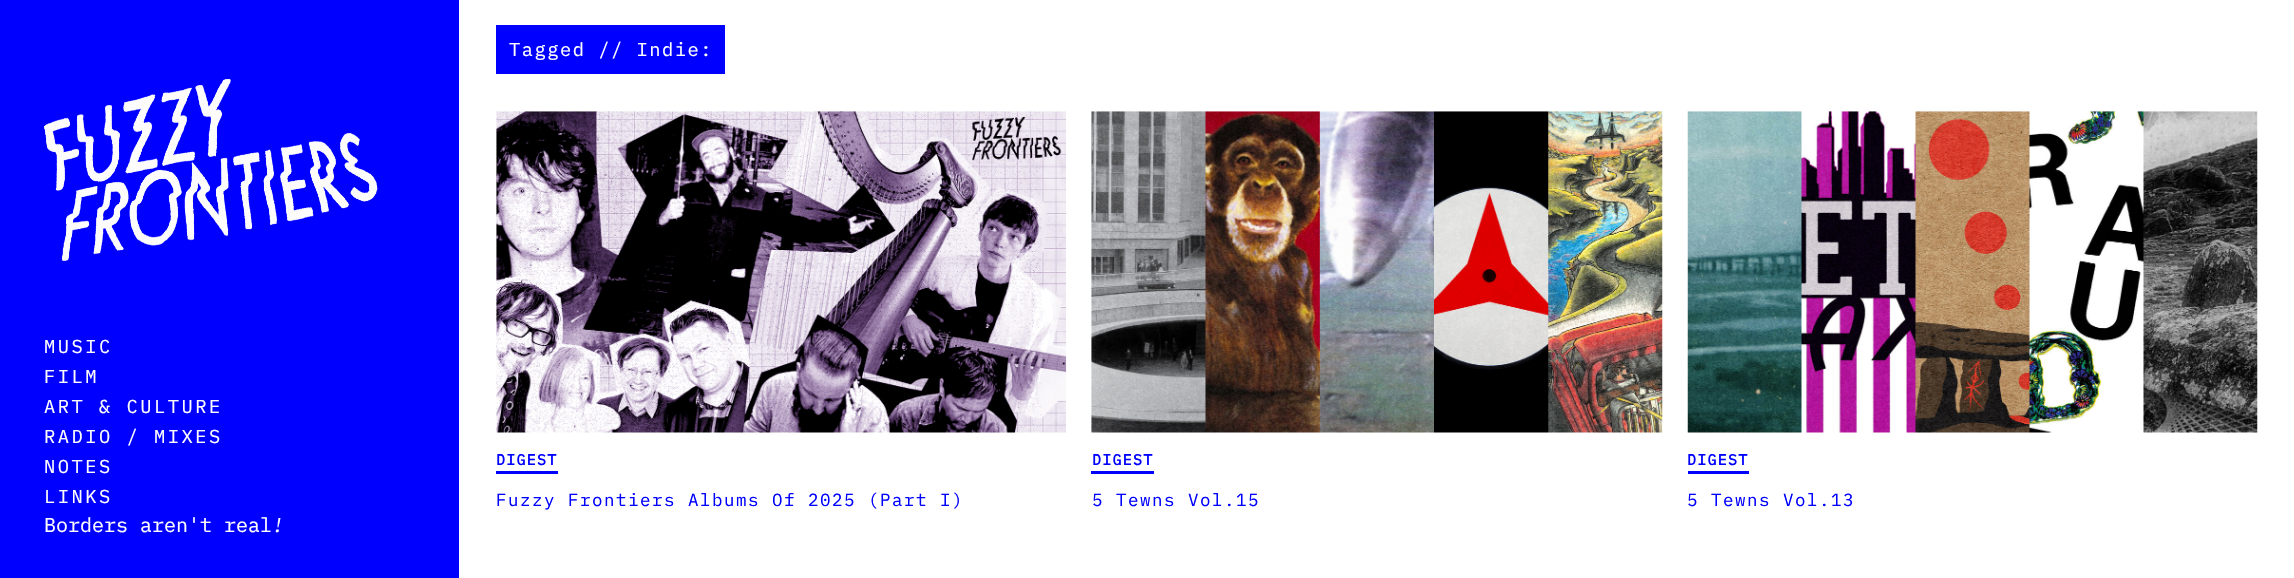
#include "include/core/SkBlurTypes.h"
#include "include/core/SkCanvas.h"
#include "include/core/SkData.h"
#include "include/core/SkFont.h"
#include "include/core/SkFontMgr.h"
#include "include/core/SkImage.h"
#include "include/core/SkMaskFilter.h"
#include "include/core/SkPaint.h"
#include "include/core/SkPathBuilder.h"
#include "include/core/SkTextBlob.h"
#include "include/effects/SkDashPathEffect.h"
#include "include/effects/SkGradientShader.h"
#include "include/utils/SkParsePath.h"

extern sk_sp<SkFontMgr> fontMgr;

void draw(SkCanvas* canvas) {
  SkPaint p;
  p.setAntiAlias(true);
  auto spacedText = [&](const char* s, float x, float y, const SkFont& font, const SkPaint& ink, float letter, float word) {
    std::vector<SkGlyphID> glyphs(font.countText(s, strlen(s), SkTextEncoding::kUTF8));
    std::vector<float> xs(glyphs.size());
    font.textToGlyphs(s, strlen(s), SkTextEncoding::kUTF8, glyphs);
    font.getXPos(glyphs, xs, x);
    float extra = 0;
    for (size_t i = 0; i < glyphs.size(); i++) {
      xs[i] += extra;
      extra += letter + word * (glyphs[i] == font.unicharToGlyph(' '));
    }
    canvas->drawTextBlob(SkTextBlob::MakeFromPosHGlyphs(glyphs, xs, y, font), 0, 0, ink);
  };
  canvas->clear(SK_ColorWHITE);
  p.setColor(SkColorSetRGB(0, 0, 255));
  canvas->drawRect(SkRect::MakeLTRB(0, 0, 459, 578), p);
  canvas->drawImageRect(SkImages::DeferredFromEncodedData(SkData::MakeFromFileName("images/1.png")), SkRect::MakeLTRB(44, 79, 378, 261), SkSamplingOptions());
  canvas->drawRect(SkRect::MakeLTRB(496, 25, 725, 74), p);
  canvas->drawImageRect(SkImages::DeferredFromEncodedData(SkData::MakeFromFileName("images/2.png")), SkRect::MakeLTRB(496, 111, 1067, 433), SkSamplingOptions());
  canvas->drawRect(SkRect::MakeLTRB(496, 471, 558, 474), p);
  canvas->drawImageRect(SkImages::DeferredFromEncodedData(SkData::MakeFromFileName("images/3.png")), SkRect::MakeLTRB(1091, 111, 1663, 433), SkSamplingOptions());
  canvas->drawRect(SkRect::MakeLTRB(1091, 471, 1154, 474), p);
  canvas->drawImageRect(SkImages::DeferredFromEncodedData(SkData::MakeFromFileName("images/4.png")), SkRect::MakeLTRB(1687, 111, 2258, 433), SkSamplingOptions());
  canvas->drawRect(SkRect::MakeLTRB(1688, 471, 1749, 474), p);
  SkFont font1(fontMgr->matchFamilyStyle("IBM Plex Mono", SkFontStyle::Normal()), 18.75f);
  font1.setSubpixel(true);
  p.setColor(SK_ColorWHITE);
  spacedText("MUSIC", 44, 353, font1, p, 2.5f, 0);
  spacedText("FILM", 44, 383, font1, p, 2.5f, 0);
  spacedText("ART & CULTURE", 44, 413, font1, p, 2.5f, 0);
  spacedText("RADIO / MIXES", 44, 443, font1, p, 2.5f, 0);
  spacedText("NOTES", 44, 473, font1, p, 2.5f, 0);
  spacedText("LINKS", 44, 503, font1, p, 2.5f, 0);
  SkFont font2(fontMgr->matchFamilyStyle("IBM Plex Mono", SkFontStyle::Normal()), 20);
  font2.setSubpixel(true);
  canvas->drawString("Borders aren't real", 44, 532, font2, p);
  SkFont font3(fontMgr->matchFamilyStyle("IBM Plex Mono", SkFontStyle::Italic()), 20);
  font3.setSubpixel(true);
  canvas->drawString("!", 272, 532, font3, p);
  spacedText("Tagged // Indie:", 509, 56, font1, p, 1.5f, 0);
  SkFont font4(fontMgr->matchFamilyStyle("IBM Plex Mono", SkFontStyle::Bold()), 15);
  font4.setSubpixel(true);
  p.setColor(SkColorSetRGB(0, 0, 255));
  spacedText("DIGEST", 496, 465, font4, p, 1.25f, 0);
  SkFont font5(fontMgr->matchFamilyStyle("IBM Plex Mono", SkFontStyle::Normal()), 17.5f);
  font5.setSubpixel(true);
  spacedText("Fuzzy Frontiers Albums Of 2025 (Part I)", 496, 506, font5, p, 1.5f, 0);
  spacedText("DIGEST", 1092, 465, font4, p, 1.25f, 0);
  spacedText("5 Tewns Vol.15", 1092, 506, font5, p, 1.5f, 0);
  spacedText("DIGEST", 1687, 465, font4, p, 1.25f, 0);
  spacedText("5 Tewns Vol.13", 1687, 506, font5, p, 1.5f, 0);
}
